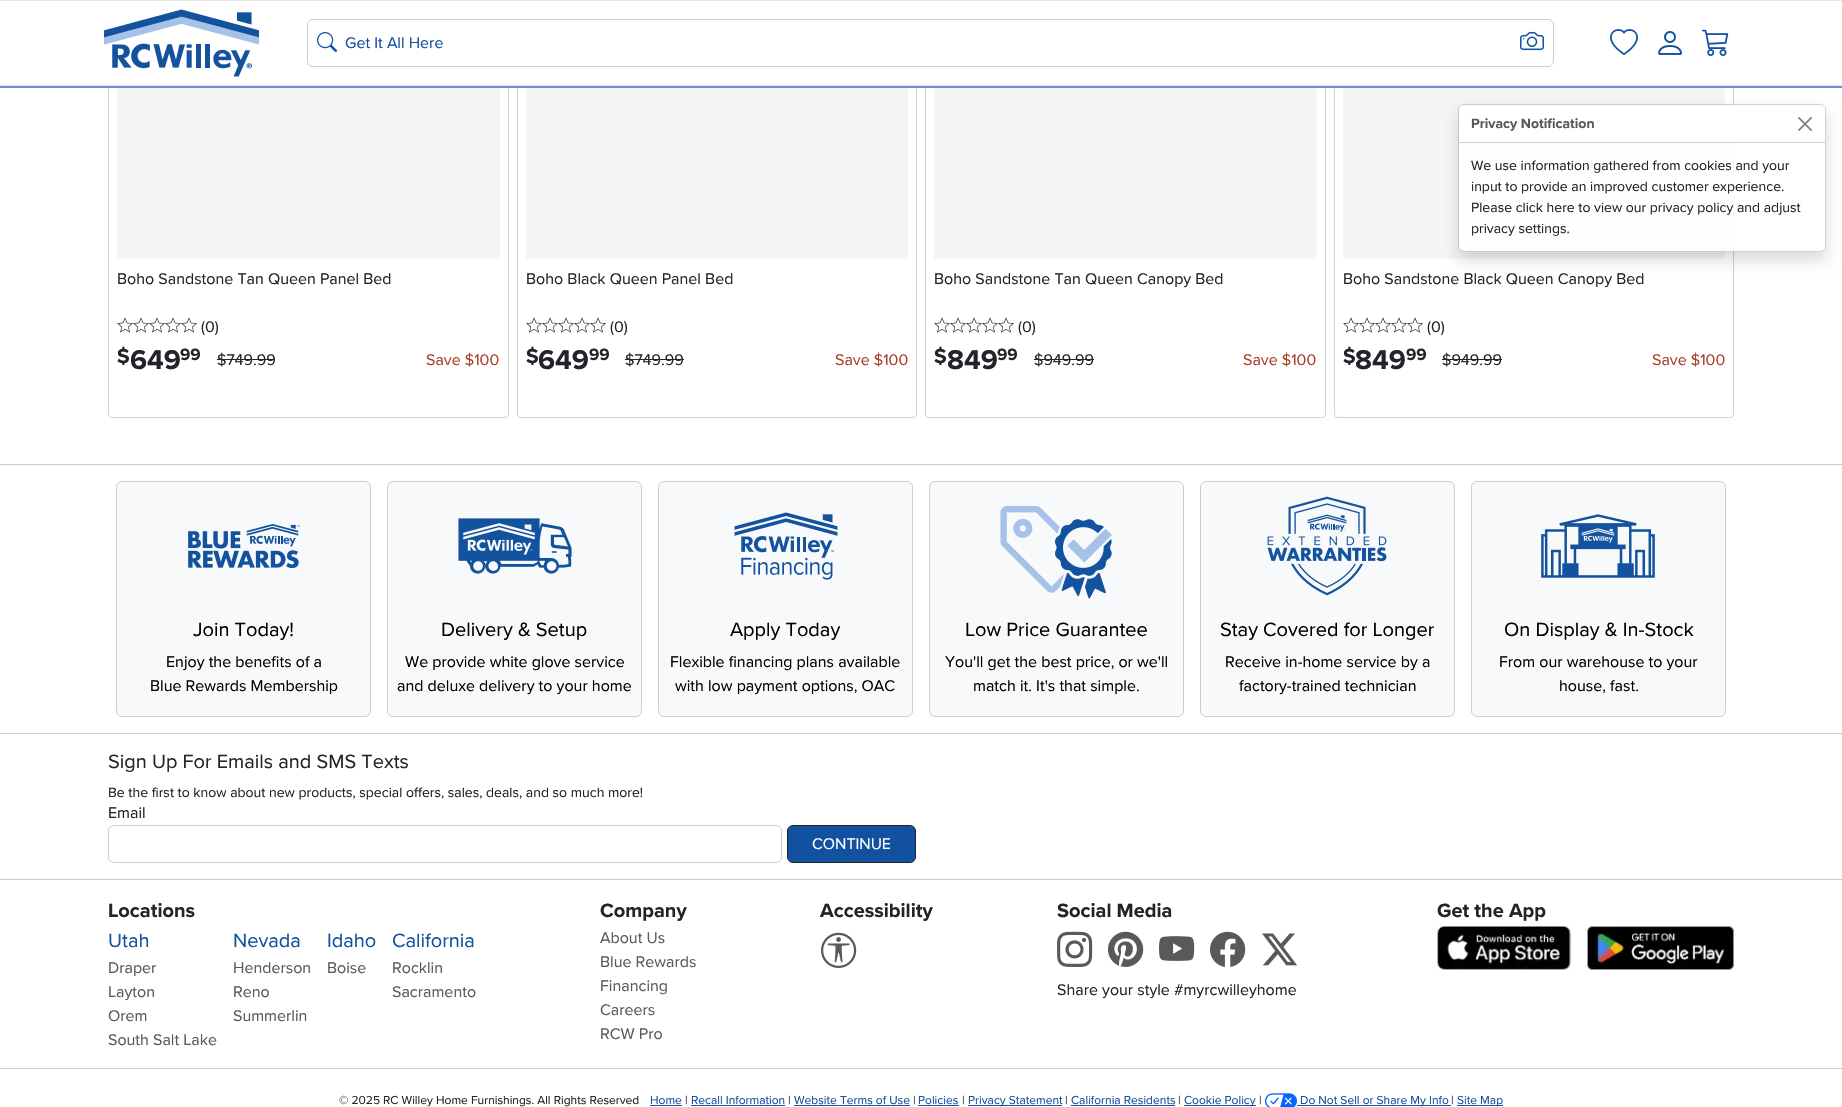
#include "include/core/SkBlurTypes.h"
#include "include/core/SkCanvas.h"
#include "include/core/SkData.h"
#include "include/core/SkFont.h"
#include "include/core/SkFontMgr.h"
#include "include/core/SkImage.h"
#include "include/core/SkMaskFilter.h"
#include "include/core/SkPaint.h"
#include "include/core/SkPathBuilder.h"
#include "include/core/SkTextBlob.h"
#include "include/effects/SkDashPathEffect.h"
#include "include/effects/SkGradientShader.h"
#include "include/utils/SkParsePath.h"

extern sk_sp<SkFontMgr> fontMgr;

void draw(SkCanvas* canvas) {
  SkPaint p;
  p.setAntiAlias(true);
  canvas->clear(SK_ColorWHITE);
  p.setStyle(SkPaint::kStroke_Style);
  p.setStrokeWidth(1);
  p.setColor(SkColorSetRGB(210, 210, 210));
  canvas->drawRoundRect(SkRect::MakeLTRB(108.5f, -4.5f, 508.5f, 417.5f), 3.5f, 3.5f, p);
  canvas->drawRoundRect(SkRect::MakeLTRB(517.5f, -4.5f, 916.5f, 417.5f), 3.5f, 3.5f, p);
  canvas->drawRoundRect(SkRect::MakeLTRB(925.5f, -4.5f, 1325.5f, 417.5f), 3.5f, 3.5f, p);
  canvas->drawRoundRect(SkRect::MakeLTRB(1334.5f, -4.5f, 1733.5f, 417.5f), 3.5f, 3.5f, p);
  p.setStyle(SkPaint::kFill_Style);
  p.setColor(SK_ColorWHITE);
  canvas->drawRect(SkRect::MakeLTRB(108, 1, 1734, 85), p);
  p.setColor(SkColorSetRGB(103, 147, 218));
  canvas->drawRect(SkRect::MakeLTRB(0, 86, 1842, 88), p);
  p.setColor(SkColorSetRGB(229, 229, 229));
  canvas->drawRect(SkRect::MakeLTRB(0, 0, 1842, 1), p);
  canvas->drawRect(SkRect::MakeLTRB(0, 85, 1842, 86), p);
  canvas->drawImageRect(SkImages::DeferredFromEncodedData(SkData::MakeFromFileName("images/1.png")), SkRect::MakeLTRB(104, 9, 259, 77), SkSamplingOptions());
  p.setStyle(SkPaint::kStroke_Style);
  p.setColor(SkColorSetRGB(204, 204, 204));
  canvas->drawRoundRect(SkRect::MakeLTRB(307.5f, 19.5f, 1553.5f, 66.5f), 5.5f, 5.5f, p);
  p.setStyle(SkPaint::kFill_Style);
  p.setColor(SK_ColorWHITE);
  canvas->drawRoundRect(SkRect::MakeLTRB(308, 20, 1553, 66), 6, 6, p);
  canvas->drawImageRect(SkImages::DeferredFromEncodedData(SkData::MakeFromFileName("images/2.png")), SkRect::MakeLTRB(317, 32, 337, 52), SkSamplingOptions());
  canvas->drawImageRect(SkImages::DeferredFromEncodedData(SkData::MakeFromFileName("images/3.png")), SkRect::MakeLTRB(1520, 31, 1544, 51), SkSamplingOptions());
  canvas->drawImageRect(SkImages::DeferredFromEncodedData(SkData::MakeFromFileName("images/4.png")), SkRect::MakeLTRB(1610, 29, 1638, 56), SkSamplingOptions());
  canvas->drawImageRect(SkImages::DeferredFromEncodedData(SkData::MakeFromFileName("images/5.png")), SkRect::MakeLTRB(1658, 31, 1682, 55), SkSamplingOptions());
  canvas->drawImageRect(SkImages::DeferredFromEncodedData(SkData::MakeFromFileName("images/6.png")), SkRect::MakeLTRB(1702, 29, 1729, 56), SkSamplingOptions());
  p.setColor(SkColorSetRGB(245, 245, 245));
  canvas->drawRect(SkRect::MakeLTRB(1343, 88, 1725, 259), p);
  canvas->save();
  canvas->clipPath(SkPathBuilder(SkPathFillType::kEvenOdd).moveTo(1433, 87).lineTo(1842, 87).lineTo(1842, 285).lineTo(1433, 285).close().moveTo(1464, 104).lineTo(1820, 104).cubicTo(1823.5f, 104, 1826, 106.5f, 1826, 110).lineTo(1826, 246).cubicTo(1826, 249.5f, 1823.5f, 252, 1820, 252).lineTo(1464, 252).cubicTo(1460.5f, 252, 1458, 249.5f, 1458, 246).lineTo(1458, 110).cubicTo(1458, 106.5f, 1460.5f, 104, 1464, 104).close().detach(), true);
  p.setColor(SkColorSetARGB(38, 0, 0, 0));
  p.setMaskFilter(SkMaskFilter::MakeBlur(kNormal_SkBlurStyle, 8));
  canvas->drawRoundRect(SkRect::MakeLTRB(1458, 112, 1826, 260), 6, 6, p);
  p.setMaskFilter(nullptr);
  canvas->restore();
  p.setColor(SkColorSetARGB(217, 255, 255, 255));
  canvas->drawRoundRect(SkRect::MakeLTRB(1459, 105, 1825, 251), 5, 5, p);
  p.setStyle(SkPaint::kStroke_Style);
  p.setColor(SkColorSetARGB(46, 0, 0, 0));
  canvas->drawRoundRect(SkRect::MakeLTRB(1458.5f, 104.5f, 1825.5f, 251.5f), 5.5f, 5.5f, p);
  p.setStyle(SkPaint::kFill_Style);
  p.setColor(SkColorSetARGB(217, 255, 255, 255));
  canvas->drawPath(SkPathBuilder().moveTo(1464, 105).lineTo(1820, 105).cubicTo(1823, 105, 1825, 107, 1825, 110).lineTo(1825, 142).lineTo(1459, 142).lineTo(1459, 110).cubicTo(1459, 107, 1461, 105, 1464, 105).close().detach(), p);
  p.setColor(SkColorSetARGB(46, 0, 0, 0));
  canvas->drawRect(SkRect::MakeLTRB(1459, 142, 1825, 143), p);
  canvas->drawImageRect(SkImages::DeferredFromEncodedData(SkData::MakeFromFileName("images/7.png")), SkRect::MakeLTRB(1798, 117, 1812, 131), SkSamplingOptions());
  p.setColor(SkColorSetRGB(245, 245, 245));
  canvas->drawRect(SkRect::MakeLTRB(117, 88, 500, 259), p);
  canvas->drawImageRect(SkImages::DeferredFromEncodedData(SkData::MakeFromFileName("images/8.png")), SkRect::MakeLTRB(117, 317, 197, 333), SkSamplingOptions());
  p.setColor(SkColorSetRGB(33, 37, 41));
  canvas->drawRect(SkRect::MakeLTRB(217, 359, 275, 360), p);
  p.setColor(SkColorSetRGB(245, 245, 245));
  canvas->drawRect(SkRect::MakeLTRB(526, 88, 908, 259), p);
  canvas->drawImageRect(SkImages::DeferredFromEncodedData(SkData::MakeFromFileName("images/8.png")), SkRect::MakeLTRB(526, 317, 606, 333), SkSamplingOptions());
  p.setColor(SkColorSetRGB(33, 37, 41));
  canvas->drawRect(SkRect::MakeLTRB(625, 359, 684, 360), p);
  p.setColor(SkColorSetRGB(245, 245, 245));
  canvas->drawRect(SkRect::MakeLTRB(934, 88, 1317, 259), p);
  canvas->drawImageRect(SkImages::DeferredFromEncodedData(SkData::MakeFromFileName("images/8.png")), SkRect::MakeLTRB(934, 317, 1014, 333), SkSamplingOptions());
  p.setColor(SkColorSetRGB(33, 37, 41));
  canvas->drawRect(SkRect::MakeLTRB(1034, 359, 1094, 360), p);
  canvas->drawImageRect(SkImages::DeferredFromEncodedData(SkData::MakeFromFileName("images/8.png")), SkRect::MakeLTRB(1343, 317, 1423, 333), SkSamplingOptions());
  canvas->drawRect(SkRect::MakeLTRB(1442, 359, 1502, 360), p);
  p.setColor(SkColorSetRGB(200, 201, 202));
  canvas->drawRect(SkRect::MakeLTRB(0, 464, 1842, 465), p);
  p.setColor(SkColorSetRGB(248, 249, 250));
  canvas->drawRoundRect(SkRect::MakeLTRB(116.5f, 481.5f, 370.5f, 716.5f), 5.5f, 5.5f, p);
  p.setStyle(SkPaint::kStroke_Style);
  p.setColor(SkColorSetRGB(204, 205, 206));
  canvas->drawRoundRect(SkRect::MakeLTRB(116.5f, 481.5f, 370.5f, 716.5f), 5.5f, 5.5f, p);
  canvas->drawImageRect(SkImages::DeferredFromEncodedData(SkData::MakeFromFileName("images/9.png")), SkRect::MakeLTRB(188, 524, 300, 569), SkSamplingOptions());
  p.setStyle(SkPaint::kFill_Style);
  p.setColor(SkColorSetRGB(248, 249, 250));
  canvas->drawRoundRect(SkRect::MakeLTRB(387.5f, 481.5f, 641.5f, 716.5f), 5.5f, 5.5f, p);
  p.setStyle(SkPaint::kStroke_Style);
  p.setColor(SkColorSetRGB(204, 205, 206));
  canvas->drawRoundRect(SkRect::MakeLTRB(387.5f, 481.5f, 641.5f, 716.5f), 5.5f, 5.5f, p);
  canvas->drawImageRect(SkImages::DeferredFromEncodedData(SkData::MakeFromFileName("images/10.png")), SkRect::MakeLTRB(458, 518, 572, 574), SkSamplingOptions());
  p.setStyle(SkPaint::kFill_Style);
  p.setColor(SkColorSetRGB(248, 249, 250));
  canvas->drawRoundRect(SkRect::MakeLTRB(658.5f, 481.5f, 912.5f, 716.5f), 5.5f, 5.5f, p);
  p.setStyle(SkPaint::kStroke_Style);
  p.setColor(SkColorSetRGB(204, 205, 206));
  canvas->drawRoundRect(SkRect::MakeLTRB(658.5f, 481.5f, 912.5f, 716.5f), 5.5f, 5.5f, p);
  canvas->drawImageRect(SkImages::DeferredFromEncodedData(SkData::MakeFromFileName("images/11.png")), SkRect::MakeLTRB(734, 512, 838, 580), SkSamplingOptions());
  p.setStyle(SkPaint::kFill_Style);
  p.setColor(SkColorSetRGB(248, 249, 250));
  canvas->drawRoundRect(SkRect::MakeLTRB(929.5f, 481.5f, 1183.5f, 716.5f), 5.5f, 5.5f, p);
  p.setStyle(SkPaint::kStroke_Style);
  p.setColor(SkColorSetRGB(204, 205, 206));
  canvas->drawRoundRect(SkRect::MakeLTRB(929.5f, 481.5f, 1183.5f, 716.5f), 5.5f, 5.5f, p);
  canvas->drawImageRect(SkImages::DeferredFromEncodedData(SkData::MakeFromFileName("images/12.png")), SkRect::MakeLTRB(1000, 506, 1112, 599), SkSamplingOptions());
  p.setStyle(SkPaint::kFill_Style);
  p.setColor(SkColorSetRGB(248, 249, 250));
  canvas->drawRoundRect(SkRect::MakeLTRB(1200.5f, 481.5f, 1454.5f, 716.5f), 5.5f, 5.5f, p);
  p.setStyle(SkPaint::kStroke_Style);
  p.setColor(SkColorSetRGB(204, 205, 206));
  canvas->drawRoundRect(SkRect::MakeLTRB(1200.5f, 481.5f, 1454.5f, 716.5f), 5.5f, 5.5f, p);
  canvas->drawImageRect(SkImages::DeferredFromEncodedData(SkData::MakeFromFileName("images/13.png")), SkRect::MakeLTRB(1267, 496, 1387, 596), SkSamplingOptions());
  p.setStyle(SkPaint::kFill_Style);
  p.setColor(SkColorSetRGB(248, 249, 250));
  canvas->drawRoundRect(SkRect::MakeLTRB(1471.5f, 481.5f, 1725.5f, 716.5f), 5.5f, 5.5f, p);
  p.setStyle(SkPaint::kStroke_Style);
  p.setColor(SkColorSetRGB(204, 205, 206));
  canvas->drawRoundRect(SkRect::MakeLTRB(1471.5f, 481.5f, 1725.5f, 716.5f), 5.5f, 5.5f, p);
  canvas->drawImageRect(SkImages::DeferredFromEncodedData(SkData::MakeFromFileName("images/14.png")), SkRect::MakeLTRB(1541, 514, 1655, 578), SkSamplingOptions());
  p.setStyle(SkPaint::kFill_Style);
  p.setColor(SkColorSetRGB(200, 201, 202));
  canvas->drawRect(SkRect::MakeLTRB(0, 733, 1842, 734), p);
  p.setStyle(SkPaint::kStroke_Style);
  p.setColor(SkColorSetRGB(204, 204, 204));
  canvas->drawRoundRect(SkRect::MakeLTRB(108.5f, 825.5f, 781.5f, 862.5f), 5.5f, 5.5f, p);
  p.setStyle(SkPaint::kFill_Style);
  p.setColor(SkColorSetRGB(18, 81, 160));
  canvas->drawRoundRect(SkRect::MakeLTRB(787.5f, 825.5f, 915.5f, 862.5f), 5.5f, 5.5f, p);
  p.setStyle(SkPaint::kStroke_Style);
  p.setColor(SkColorSetRGB(33, 37, 41));
  canvas->drawRoundRect(SkRect::MakeLTRB(787.5f, 825.5f, 915.5f, 862.5f), 5.5f, 5.5f, p);
  p.setStyle(SkPaint::kFill_Style);
  p.setColor(SkColorSetRGB(200, 201, 202));
  canvas->drawRect(SkRect::MakeLTRB(0, 879, 1842, 880), p);
  canvas->drawImageRect(SkImages::DeferredFromEncodedData(SkData::MakeFromFileName("images/15.png")), SkRect::MakeLTRB(821, 932, 857, 968), SkSamplingOptions());
  canvas->drawImageRect(SkImages::DeferredFromEncodedData(SkData::MakeFromFileName("images/16.png")), SkRect::MakeLTRB(1057, 931, 1093, 967), SkSamplingOptions());
  canvas->drawImageRect(SkImages::DeferredFromEncodedData(SkData::MakeFromFileName("images/17.png")), SkRect::MakeLTRB(1108, 931, 1144, 967), SkSamplingOptions());
  canvas->drawImageRect(SkImages::DeferredFromEncodedData(SkData::MakeFromFileName("images/18.png")), SkRect::MakeLTRB(1159, 936, 1195, 961), SkSamplingOptions());
  canvas->drawImageRect(SkImages::DeferredFromEncodedData(SkData::MakeFromFileName("images/19.png")), SkRect::MakeLTRB(1210, 931, 1246, 967), SkSamplingOptions());
  canvas->drawImageRect(SkImages::DeferredFromEncodedData(SkData::MakeFromFileName("images/20.png")), SkRect::MakeLTRB(1262, 933, 1297, 966), SkSamplingOptions());
  canvas->drawImageRect(SkImages::DeferredFromEncodedData(SkData::MakeFromFileName("images/21.png")), SkRect::MakeLTRB(1437, 926, 1572, 970), SkSamplingOptions());
  canvas->drawImageRect(SkImages::DeferredFromEncodedData(SkData::MakeFromFileName("images/22.png")), SkRect::MakeLTRB(1587, 926, 1734, 970), SkSamplingOptions());
  canvas->drawRect(SkRect::MakeLTRB(0, 1068, 1842, 1069), p);
  p.setColor(SkColorSetRGB(18, 82, 158));
  canvas->drawRect(SkRect::MakeLTRB(650, 1105, 682, 1106), p);
  canvas->drawRect(SkRect::MakeLTRB(691, 1105, 785, 1106), p);
  canvas->drawRect(SkRect::MakeLTRB(794, 1105, 910, 1106), p);
  canvas->drawRect(SkRect::MakeLTRB(918, 1105, 959, 1106), p);
  canvas->drawRect(SkRect::MakeLTRB(968, 1105, 1062, 1106), p);
  canvas->drawRect(SkRect::MakeLTRB(1071, 1105, 1175, 1106), p);
  canvas->drawRect(SkRect::MakeLTRB(1184, 1105, 1256, 1106), p);
  canvas->drawImageRect(SkImages::DeferredFromEncodedData(SkData::MakeFromFileName("images/23.png")), SkRect::MakeLTRB(1265, 1093, 1297, 1107), SkSamplingOptions());
  canvas->drawRect(SkRect::MakeLTRB(1297, 1105, 1451, 1106), p);
  canvas->drawRect(SkRect::MakeLTRB(1457, 1105, 1503, 1106), p);
  SkFont font1(fontMgr->matchFamilyStyle("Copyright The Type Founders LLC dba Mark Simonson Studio", SkFontStyle::Normal()), 16);
  font1.setSubpixel(true);
  canvas->drawString("Get It All Here", 345, 48, font1, p);
  SkFont font2(fontMgr->matchFamilyStyle("Copyright The Type Founders LLC dba Mark Simonson Studio", SkFontStyle::Bold()), 14);
  font2.setSubpixel(true);
  p.setColor(SkColorSetRGB(89, 89, 89));
  canvas->drawString("Privacy Notification", 1471, 128, font2, p);
  SkFont font3(fontMgr->matchFamilyStyle("Copyright The Type Founders LLC dba Mark Simonson Studio", SkFontStyle::Normal()), 14);
  font3.setSubpixel(true);
  p.setColor(SkColorSetRGB(33, 37, 41));
  canvas->drawString("We use information gathered from cookies and your", 1471, 170, font3, p);
  canvas->drawString("input to provide an improved customer experience.", 1471, 191, font3, p);
  canvas->drawString("Please click here to view our privacy policy and adjust", 1471, 212, font3, p);
  canvas->drawString("privacy settings.", 1471, 233, font3, p);
  canvas->drawString("Boho Sandstone Tan Queen Panel Bed", 117, 284, font1, p);
  canvas->drawString("(0)", 201, 332, font1, p);
  SkFont font4(fontMgr->matchFamilyStyle("Copyright The Type Founders LLC dba Mark Simonson Studio", SkFontStyle::Bold()), 21);
  font4.setSubpixel(true);
  canvas->drawString("$", 117, 363, font4, p);
  SkFont font5(fontMgr->matchFamilyStyle("Copyright The Type Founders LLC dba Mark Simonson Studio", SkFontStyle::Bold()), 28);
  font5.setSubpixel(true);
  canvas->drawString("649", 130, 369, font5, p);
  SkFont font6(fontMgr->matchFamilyStyle("Copyright The Type Founders LLC dba Mark Simonson Studio", SkFontStyle::Bold()), 17);
  font6.setSubpixel(true);
  canvas->drawString("99", 180, 360, font6, p);
  canvas->drawString("$749.99", 217, 365, font1, p);
  p.setColor(SkColorSetRGB(172, 61, 41));
  canvas->drawString("Save $100", 426, 365, font1, p);
  p.setColor(SkColorSetRGB(33, 37, 41));
  canvas->drawString("Boho Black Queen Panel Bed", 526, 284, font1, p);
  canvas->drawString("(0)", 610, 332, font1, p);
  canvas->drawString("$", 526, 363, font4, p);
  canvas->drawString("649", 538, 369, font5, p);
  canvas->drawString("99", 589, 360, font6, p);
  canvas->drawString("$749.99", 625, 365, font1, p);
  p.setColor(SkColorSetRGB(172, 61, 41));
  canvas->drawString("Save $100", 835, 365, font1, p);
  p.setColor(SkColorSetRGB(33, 37, 41));
  canvas->drawString("Boho Sandstone Tan Queen Canopy Bed", 934, 284, font1, p);
  canvas->drawString("(0)", 1018, 332, font1, p);
  canvas->drawString("$", 934, 363, font4, p);
  canvas->drawString("849", 947, 369, font5, p);
  canvas->drawString("99", 997, 360, font6, p);
  canvas->drawString("$949.99", 1034, 365, font1, p);
  p.setColor(SkColorSetRGB(172, 61, 41));
  canvas->drawString("Save $100", 1243, 365, font1, p);
  p.setColor(SkColorSetRGB(33, 37, 41));
  canvas->drawString("Boho Sandstone Black Queen Canopy Bed", 1343, 284, font1, p);
  canvas->drawString("(0)", 1427, 332, font1, p);
  canvas->drawString("$", 1343, 363, font4, p);
  canvas->drawString("849", 1355, 369, font5, p);
  canvas->drawString("99", 1406, 360, font6, p);
  canvas->drawString("$949.99", 1442, 365, font1, p);
  p.setColor(SkColorSetRGB(172, 61, 41));
  canvas->drawString("Save $100", 1652, 365, font1, p);
  SkFont font7(fontMgr->matchFamilyStyle("Copyright The Type Founders LLC dba Mark Simonson Studio", SkFontStyle::Normal()), 20);
  font7.setSubpixel(true);
  p.setColor(SK_ColorBLACK);
  canvas->drawString("Join Today!", 193, 636, font7, p);
  canvas->drawString("Enjoy the benefits of a", 166, 667, font1, p);
  canvas->drawString("Blue Rewards Membership", 150, 691, font1, p);
  canvas->drawString("Delivery & Setup", 441, 636, font7, p);
  canvas->drawString("We provide white glove service", 405, 667, font1, p);
  canvas->drawString("and deluxe delivery to your home", 397, 691, font1, p);
  canvas->drawString("Apply Today", 730, 636, font7, p);
  canvas->drawString("Flexible financing plans available", 670, 667, font1, p);
  canvas->drawString("with low payment options, OAC", 675, 691, font1, p);
  canvas->drawString("Low Price Guarantee", 965, 636, font7, p);
  canvas->drawString("You'll get the best price, or we'll", 945, 667, font1, p);
  canvas->drawString("match it. It's that simple.", 973, 691, font1, p);
  canvas->drawString("Stay Covered for Longer", 1220, 636, font7, p);
  canvas->drawString("Receive in-home service by a", 1225, 667, font1, p);
  canvas->drawString("factory-trained technician", 1239, 691, font1, p);
  canvas->drawString("On Display & In-Stock", 1504, 636, font7, p);
  canvas->drawString("From our warehouse to your", 1499, 667, font1, p);
  canvas->drawString("house, fast.", 1559, 691, font1, p);
  p.setColor(SkColorSetRGB(33, 37, 41));
  canvas->drawString("Sign Up For Emails and SMS Texts", 108, 768, font7, p);
  canvas->drawString("Be the first to know about new products, special offers, sales, deals, and so much more!", 108, 797, font3, p);
  canvas->drawString("Email", 108, 818, font1, p);
  p.setColor(SK_ColorWHITE);
  canvas->drawString("CONTINUE", 812, 849, font1, p);
  SkFont font8(fontMgr->matchFamilyStyle("Copyright The Type Founders LLC dba Mark Simonson Studio", SkFontStyle::Bold()), 20);
  font8.setSubpixel(true);
  p.setColor(SkColorSetRGB(33, 37, 41));
  canvas->drawString("Locations", 108, 917, font8, p);
  p.setColor(SkColorSetRGB(18, 82, 158));
  canvas->drawString("Utah", 108, 947, font7, p);
  p.setColor(SkColorSetRGB(89, 89, 89));
  canvas->drawString("Draper", 108, 973, font1, p);
  canvas->drawString("Layton", 108, 997, font1, p);
  canvas->drawString("Orem", 108, 1021, font1, p);
  canvas->drawString("South Salt Lake", 108, 1045, font1, p);
  p.setColor(SkColorSetRGB(18, 82, 158));
  canvas->drawString("Nevada", 233, 947, font7, p);
  p.setColor(SkColorSetRGB(89, 89, 89));
  canvas->drawString("Henderson", 233, 973, font1, p);
  canvas->drawString("Reno", 233, 997, font1, p);
  canvas->drawString("Summerlin", 233, 1021, font1, p);
  p.setColor(SkColorSetRGB(18, 82, 158));
  canvas->drawString("Idaho", 327, 947, font7, p);
  p.setColor(SkColorSetRGB(89, 89, 89));
  canvas->drawString("Boise", 327, 973, font1, p);
  p.setColor(SkColorSetRGB(18, 82, 158));
  canvas->drawString("California", 392, 947, font7, p);
  p.setColor(SkColorSetRGB(89, 89, 89));
  canvas->drawString("Rocklin", 392, 973, font1, p);
  canvas->drawString("Sacramento", 392, 997, font1, p);
  p.setColor(SkColorSetRGB(33, 37, 41));
  canvas->drawString("Company", 600, 917, font8, p);
  p.setColor(SkColorSetRGB(89, 89, 89));
  canvas->drawString("About Us", 600, 943, font1, p);
  canvas->drawString("Blue Rewards", 600, 967, font1, p);
  canvas->drawString("Financing", 600, 991, font1, p);
  canvas->drawString("Careers", 600, 1015, font1, p);
  canvas->drawString("RCW Pro", 600, 1039, font1, p);
  p.setColor(SkColorSetRGB(33, 37, 41));
  canvas->drawString("Accessibility", 820, 917, font8, p);
  canvas->drawString("Social Media", 1057, 917, font8, p);
  canvas->drawString("Share your style #myrcwilleyhome", 1057, 995, font1, p);
  canvas->drawString("Get the App", 1437, 917, font8, p);
  SkFont font9(fontMgr->matchFamilyStyle("Copyright The Type Founders LLC dba Mark Simonson Studio", SkFontStyle::Normal()), 12);
  font9.setSubpixel(true);
  canvas->drawString("© 2025 RC Willey Home Furnishings. All Rights Reserved", 339, 1104, font9, p);
  p.setColor(SkColorSetRGB(18, 82, 158));
  canvas->drawString("Home", 650, 1104, font9, p);
  p.setColor(SkColorSetRGB(33, 37, 41));
  canvas->drawString("|", 685, 1104, font9, p);
  p.setColor(SkColorSetRGB(18, 82, 158));
  canvas->drawString("Recall Information", 691, 1104, font9, p);
  p.setColor(SkColorSetRGB(33, 37, 41));
  canvas->drawString("|", 788, 1104, font9, p);
  p.setColor(SkColorSetRGB(18, 82, 158));
  canvas->drawString("Website Terms of Use", 794, 1104, font9, p);
  p.setColor(SkColorSetRGB(33, 37, 41));
  canvas->drawString("|", 913, 1104, font9, p);
  p.setColor(SkColorSetRGB(18, 82, 158));
  canvas->drawString("Policies", 918, 1104, font9, p);
  p.setColor(SkColorSetRGB(33, 37, 41));
  canvas->drawString("|", 962, 1104, font9, p);
  p.setColor(SkColorSetRGB(18, 82, 158));
  canvas->drawString("Privacy Statement", 968, 1104, font9, p);
  p.setColor(SkColorSetRGB(33, 37, 41));
  canvas->drawString("|", 1065, 1104, font9, p);
  p.setColor(SkColorSetRGB(18, 82, 158));
  canvas->drawString("California Residents", 1071, 1104, font9, p);
  p.setColor(SkColorSetRGB(33, 37, 41));
  canvas->drawString("|", 1178, 1104, font9, p);
  p.setColor(SkColorSetRGB(18, 82, 158));
  canvas->drawString("Cookie Policy", 1184, 1104, font9, p);
  p.setColor(SkColorSetRGB(33, 37, 41));
  canvas->drawString("|", 1259, 1104, font9, p);
  p.setColor(SkColorSetRGB(18, 82, 158));
  canvas->drawString("Do Not Sell or Share My Info", 1300, 1104, font9, p);
  p.setColor(SkColorSetRGB(33, 37, 41));
  canvas->drawString("|", 1451, 1104, font9, p);
  p.setColor(SkColorSetRGB(18, 82, 158));
  canvas->drawString("Site Map", 1457, 1104, font9, p);
}
